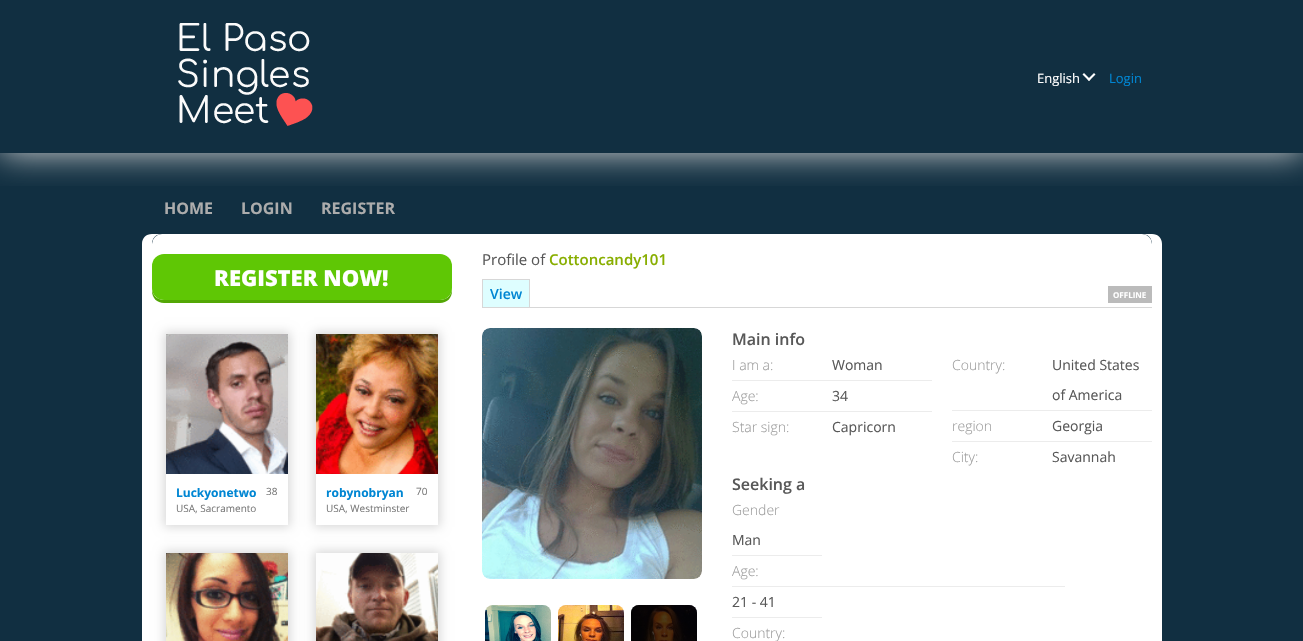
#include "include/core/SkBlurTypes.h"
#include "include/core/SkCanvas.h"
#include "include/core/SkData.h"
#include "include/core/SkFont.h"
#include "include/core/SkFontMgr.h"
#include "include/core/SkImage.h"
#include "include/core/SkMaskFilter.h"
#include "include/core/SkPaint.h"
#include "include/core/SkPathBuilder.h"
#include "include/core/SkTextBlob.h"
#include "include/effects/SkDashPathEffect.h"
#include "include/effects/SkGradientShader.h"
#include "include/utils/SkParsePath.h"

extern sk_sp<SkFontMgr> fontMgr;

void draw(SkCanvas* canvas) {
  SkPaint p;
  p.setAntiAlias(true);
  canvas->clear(SkColorSetRGB(17, 47, 65));
  canvas->save();
  canvas->clipRect(SkRect::MakeLTRB(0, 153, 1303, 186));
  p.setColor(SkColorSetRGB(215, 215, 215));
  p.setMaskFilter(SkMaskFilter::MakeBlur(kNormal_SkBlurStyle, 16));
  canvas->drawRect(SkRect::MakeLTRB(0, 0, 1303, 153), p);
  p.setMaskFilter(nullptr);
  canvas->restore();
  canvas->drawImageRect(SkImages::DeferredFromEncodedData(SkData::MakeFromFileName("images/1.png")), SkRect::MakeLTRB(178, 23, 313, 126), SkSamplingOptions());
  p.setColor(SK_ColorWHITE);
  canvas->drawPath(SkPathBuilder().moveTo(1094, 73).lineTo(1095.5f, 74.5f).lineTo(1089, 81).lineTo(1087.5f, 79.5f).close().detach(), p);
  canvas->drawPath(SkPathBuilder().moveTo(1084, 73).lineTo(1090.5f, 79.5f).lineTo(1089, 81).lineTo(1082.5f, 74.5f).close().detach(), p);
  canvas->drawPath(SkPathBuilder().moveTo(152, 234).cubicTo(146, 234, 142, 238, 142, 244).lineTo(142, 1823).cubicTo(142, 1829, 146, 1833, 152, 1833).lineTo(162, 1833).cubicTo(156, 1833, 152, 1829, 152, 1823).lineTo(152, 244).cubicTo(152, 238, 156, 234, 162, 234).close().detach(), p);
  canvas->drawPath(SkPathBuilder().moveTo(1142, 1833).lineTo(1152, 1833).cubicTo(1158, 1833, 1162, 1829, 1162, 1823).lineTo(1162, 244).cubicTo(1162, 238, 1158, 234, 1152, 234).lineTo(1142, 234).cubicTo(1148, 234, 1152, 238, 1152, 244).lineTo(1152, 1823).cubicTo(1152, 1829, 1148, 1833, 1142, 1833).close().detach(), p);
  canvas->drawRoundRect(SkRect::MakeLTRB(152, 234, 1152, 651), 10, 10, p);
  p.setColor(SkColorSetRGB(83, 167, 5));
  canvas->drawPath(SkPathBuilder().moveTo(152, 288).lineTo(152, 291).cubicTo(152, 298, 157, 303, 164, 303).lineTo(440, 303).cubicTo(447, 303, 452, 298, 452, 291).lineTo(452, 288).cubicTo(452, 295, 447, 300, 440, 300).lineTo(164, 300).cubicTo(157, 300, 152, 295, 152, 288).close().detach(), p);
  p.setColor(SkColorSetRGB(95, 199, 5));
  canvas->drawRoundRect(SkRect::MakeLTRB(152, 254, 452, 300), 12, 12, p);
  canvas->save();
  canvas->clipPath(SkPathBuilder(SkPathFillType::kEvenOdd).moveTo(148, 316).lineTo(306, 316).lineTo(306, 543).lineTo(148, 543).close().moveTo(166, 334).lineTo(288, 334).lineTo(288, 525).lineTo(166, 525).close().detach(), true);
  p.setColor(SkColorSetRGB(215, 215, 215));
  p.setMaskFilter(SkMaskFilter::MakeBlur(kNormal_SkBlurStyle, 5));
  canvas->drawRect(SkRect::MakeLTRB(164, 332, 290, 527), p);
  p.setMaskFilter(nullptr);
  canvas->restore();
  canvas->drawImageRect(SkImages::DeferredFromEncodedData(SkData::MakeFromFileName("images/2.png")), SkRect::MakeLTRB(166, 334, 288, 474), SkSamplingOptions());
  canvas->save();
  canvas->clipPath(SkPathBuilder(SkPathFillType::kEvenOdd).moveTo(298, 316).lineTo(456, 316).lineTo(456, 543).lineTo(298, 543).close().moveTo(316, 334).lineTo(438, 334).lineTo(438, 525).lineTo(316, 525).close().detach(), true);
  p.setMaskFilter(SkMaskFilter::MakeBlur(kNormal_SkBlurStyle, 5));
  canvas->drawRect(SkRect::MakeLTRB(314, 332, 440, 527), p);
  p.setMaskFilter(nullptr);
  canvas->restore();
  canvas->drawImageRect(SkImages::DeferredFromEncodedData(SkData::MakeFromFileName("images/3.png")), SkRect::MakeLTRB(316, 334, 438, 474), SkSamplingOptions());
  p.setMaskFilter(SkMaskFilter::MakeBlur(kNormal_SkBlurStyle, 5));
  canvas->drawRect(SkRect::MakeLTRB(164, 551, 290, 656), p);
  p.setMaskFilter(nullptr);
  canvas->drawImageRect(SkImages::DeferredFromEncodedData(SkData::MakeFromFileName("images/4.png")), SkRect::MakeLTRB(166, 553, 288, 641), SkSamplingOptions());
  p.setMaskFilter(SkMaskFilter::MakeBlur(kNormal_SkBlurStyle, 5));
  canvas->drawRect(SkRect::MakeLTRB(314, 551, 440, 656), p);
  p.setMaskFilter(nullptr);
  canvas->drawImageRect(SkImages::DeferredFromEncodedData(SkData::MakeFromFileName("images/5.png")), SkRect::MakeLTRB(316, 553, 438, 641), SkSamplingOptions());
  canvas->drawRect(SkRect::MakeLTRB(482, 307, 1152, 308), p);
  p.setColor(SkColorSetRGB(222, 254, 255));
  canvas->drawRect(SkRect::MakeLTRB(483, 280, 529, 307), p);
  p.setColor(SkColorSetRGB(215, 215, 215));
  canvas->drawRect(SkRect::MakeLTRB(482, 279, 530, 280), p);
  canvas->drawRect(SkRect::MakeLTRB(529, 279, 530, 307), p);
  canvas->drawRect(SkRect::MakeLTRB(482, 279, 483, 307), p);
  p.setColor(SkColorSetRGB(187, 187, 187));
  canvas->drawRect(SkRect::MakeLTRB(1108, 286, 1152, 303), p);
  canvas->drawImageRect(SkImages::DeferredFromEncodedData(SkData::MakeFromFileName("images/6.png")), SkRect::MakeLTRB(482, 328, 702, 579), SkSamplingOptions());
  canvas->drawImageRect(SkImages::DeferredFromEncodedData(SkData::MakeFromFileName("images/7.png")), SkRect::MakeLTRB(485, 605, 551, 641), SkSamplingOptions());
  canvas->drawImageRect(SkImages::DeferredFromEncodedData(SkData::MakeFromFileName("images/8.png")), SkRect::MakeLTRB(558, 605, 624, 641), SkSamplingOptions());
  canvas->drawImageRect(SkImages::DeferredFromEncodedData(SkData::MakeFromFileName("images/9.png")), SkRect::MakeLTRB(631, 605, 697, 641), SkSamplingOptions());
  p.setColor(SkColorSetARGB(179, 0, 0, 0));
  canvas->drawRoundRect(SkRect::MakeLTRB(631, 605, 697, 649), 8, 8, p);
  p.setColor(SkColorSetRGB(236, 236, 236));
  canvas->drawRect(SkRect::MakeLTRB(732, 380, 932, 381), p);
  canvas->drawRect(SkRect::MakeLTRB(732, 411, 932, 412), p);
  canvas->drawRect(SkRect::MakeLTRB(952, 410, 1152, 411), p);
  canvas->drawRect(SkRect::MakeLTRB(952, 441, 1152, 442), p);
  canvas->drawRect(SkRect::MakeLTRB(732, 555, 822, 556), p);
  canvas->drawRect(SkRect::MakeLTRB(732, 586, 1065, 587), p);
  canvas->drawRect(SkRect::MakeLTRB(732, 617, 822, 618), p);
  SkFont font1(fontMgr->matchFamilyStyle("Open Sans", SkFontStyle::Normal()), 13);
  font1.setSubpixel(true);
  p.setColor(SK_ColorWHITE);
  canvas->drawString("English", 1037, 83, font1, p);
  p.setColor(SkColorSetRGB(0, 134, 211));
  canvas->drawString("Login", 1109, 83, font1, p);
  SkFont font2(fontMgr->matchFamilyStyle("Open Sans", SkFontStyle::Bold()), 16);
  font2.setSubpixel(true);
  p.setColor(SkColorSetRGB(172, 172, 172));
  canvas->drawString("HOME", 164, 214, font2, p);
  canvas->drawString("LOGIN", 241, 214, font2, p);
  canvas->drawString("REGISTER", 321, 214, font2, p);
  SkFont font3(fontMgr->matchFamilyStyle("Open Sans", SkFontStyle(800, SkFontStyle::kNormal_Width, SkFontStyle::kUpright_Slant)), 22);
  font3.setSubpixel(true);
  p.setColor(SK_ColorWHITE);
  canvas->drawString("REGISTER NOW!", 214, 286, font3, p);
  SkFont font4(fontMgr->matchFamilyStyle("Open Sans", SkFontStyle::Bold()), 12);
  font4.setSubpixel(true);
  p.setColor(SkColorSetRGB(0, 134, 211));
  canvas->drawString("Luckyonetwo", 176, 497, font4, p);
  SkFont font5(fontMgr->matchFamilyStyle("Open Sans", SkFontStyle::Normal()), 10);
  font5.setSubpixel(true);
  p.setColor(SkColorSetRGB(121, 121, 121));
  canvas->drawString("38", 266, 495, font5, p);
  canvas->drawString("USA, Sacramento", 176, 512, font5, p);
  p.setColor(SkColorSetRGB(0, 134, 211));
  canvas->drawString("robynobryan", 326, 497, font4, p);
  p.setColor(SkColorSetRGB(121, 121, 121));
  canvas->drawString("70", 416, 495, font5, p);
  canvas->drawString("USA, Westminster", 326, 512, font5, p);
  SkFont font6(fontMgr->matchFamilyStyle("Open Sans", SkFontStyle::Normal()), 15);
  font6.setSubpixel(true);
  p.setColor(SkColorSetRGB(88, 88, 88));
  canvas->drawString("Profile of", 482, 265, font6, p);
  SkFont font7(fontMgr->matchFamilyStyle("Open Sans", SkFontStyle(600, SkFontStyle::kNormal_Width, SkFontStyle::kUpright_Slant)), 15);
  font7.setSubpixel(true);
  p.setColor(SkColorSetRGB(136, 174, 0));
  canvas->drawString("Cottoncandy101", 549, 265, font7, p);
  SkFont font8(fontMgr->matchFamilyStyle("Open Sans", SkFontStyle(600, SkFontStyle::kNormal_Width, SkFontStyle::kUpright_Slant)), 14);
  font8.setSubpixel(true);
  p.setColor(SkColorSetRGB(0, 134, 211));
  canvas->drawString("View", 490, 299, font8, p);
  SkFont font9(fontMgr->matchFamilyStyle("Open Sans", SkFontStyle::Bold()), 8);
  font9.setSubpixel(true);
  p.setColor(SK_ColorWHITE);
  canvas->drawString("OFFLINE", 1113, 298, font9, p);
  SkFont font10(fontMgr->matchFamilyStyle("Open Sans", SkFontStyle(600, SkFontStyle::kNormal_Width, SkFontStyle::kUpright_Slant)), 16);
  font10.setSubpixel(true);
  p.setColor(SkColorSetRGB(88, 88, 88));
  canvas->drawString("Main info", 732, 345, font10, p);
  SkFont font11(fontMgr->matchFamilyStyle("Open Sans", SkFontStyle(300, SkFontStyle::kNormal_Width, SkFontStyle::kUpright_Slant)), 14);
  font11.setSubpixel(true);
  p.setColor(SkColorSetRGB(156, 156, 156));
  canvas->drawString("I am a:", 732, 370, font11, p);
  SkFont font12(fontMgr->matchFamilyStyle("Open Sans", SkFontStyle::Normal()), 14);
  font12.setSubpixel(true);
  p.setColor(SkColorSetRGB(88, 88, 88));
  canvas->drawString("Woman", 832, 370, font12, p);
  p.setColor(SkColorSetRGB(156, 156, 156));
  canvas->drawString("Age:", 732, 401, font11, p);
  p.setColor(SkColorSetRGB(88, 88, 88));
  canvas->drawString("34", 832, 401, font12, p);
  p.setColor(SkColorSetRGB(156, 156, 156));
  canvas->drawString("Star sign:", 732, 432, font11, p);
  p.setColor(SkColorSetRGB(88, 88, 88));
  canvas->drawString("Capricorn", 832, 432, font12, p);
  p.setColor(SkColorSetRGB(156, 156, 156));
  canvas->drawString("Country:", 952, 370, font11, p);
  p.setColor(SkColorSetRGB(88, 88, 88));
  canvas->drawString("United States", 1052, 370, font12, p);
  canvas->drawString("of America", 1052, 400, font12, p);
  p.setColor(SkColorSetRGB(156, 156, 156));
  canvas->drawString("region", 952, 431, font11, p);
  p.setColor(SkColorSetRGB(88, 88, 88));
  canvas->drawString("Georgia", 1052, 431, font12, p);
  p.setColor(SkColorSetRGB(156, 156, 156));
  canvas->drawString("City:", 952, 462, font11, p);
  p.setColor(SkColorSetRGB(88, 88, 88));
  canvas->drawString("Savannah", 1052, 462, font12, p);
  canvas->drawString("Seeking a", 732, 490, font10, p);
  p.setColor(SkColorSetRGB(156, 156, 156));
  canvas->drawString("Gender", 732, 515, font11, p);
  p.setColor(SkColorSetRGB(88, 88, 88));
  canvas->drawString("Man", 732, 545, font12, p);
  p.setColor(SkColorSetRGB(156, 156, 156));
  canvas->drawString("Age:", 732, 576, font11, p);
  p.setColor(SkColorSetRGB(88, 88, 88));
  canvas->drawString("21 - 41", 732, 607, font12, p);
  p.setColor(SkColorSetRGB(156, 156, 156));
  canvas->drawString("Country:", 732, 638, font11, p);
}
